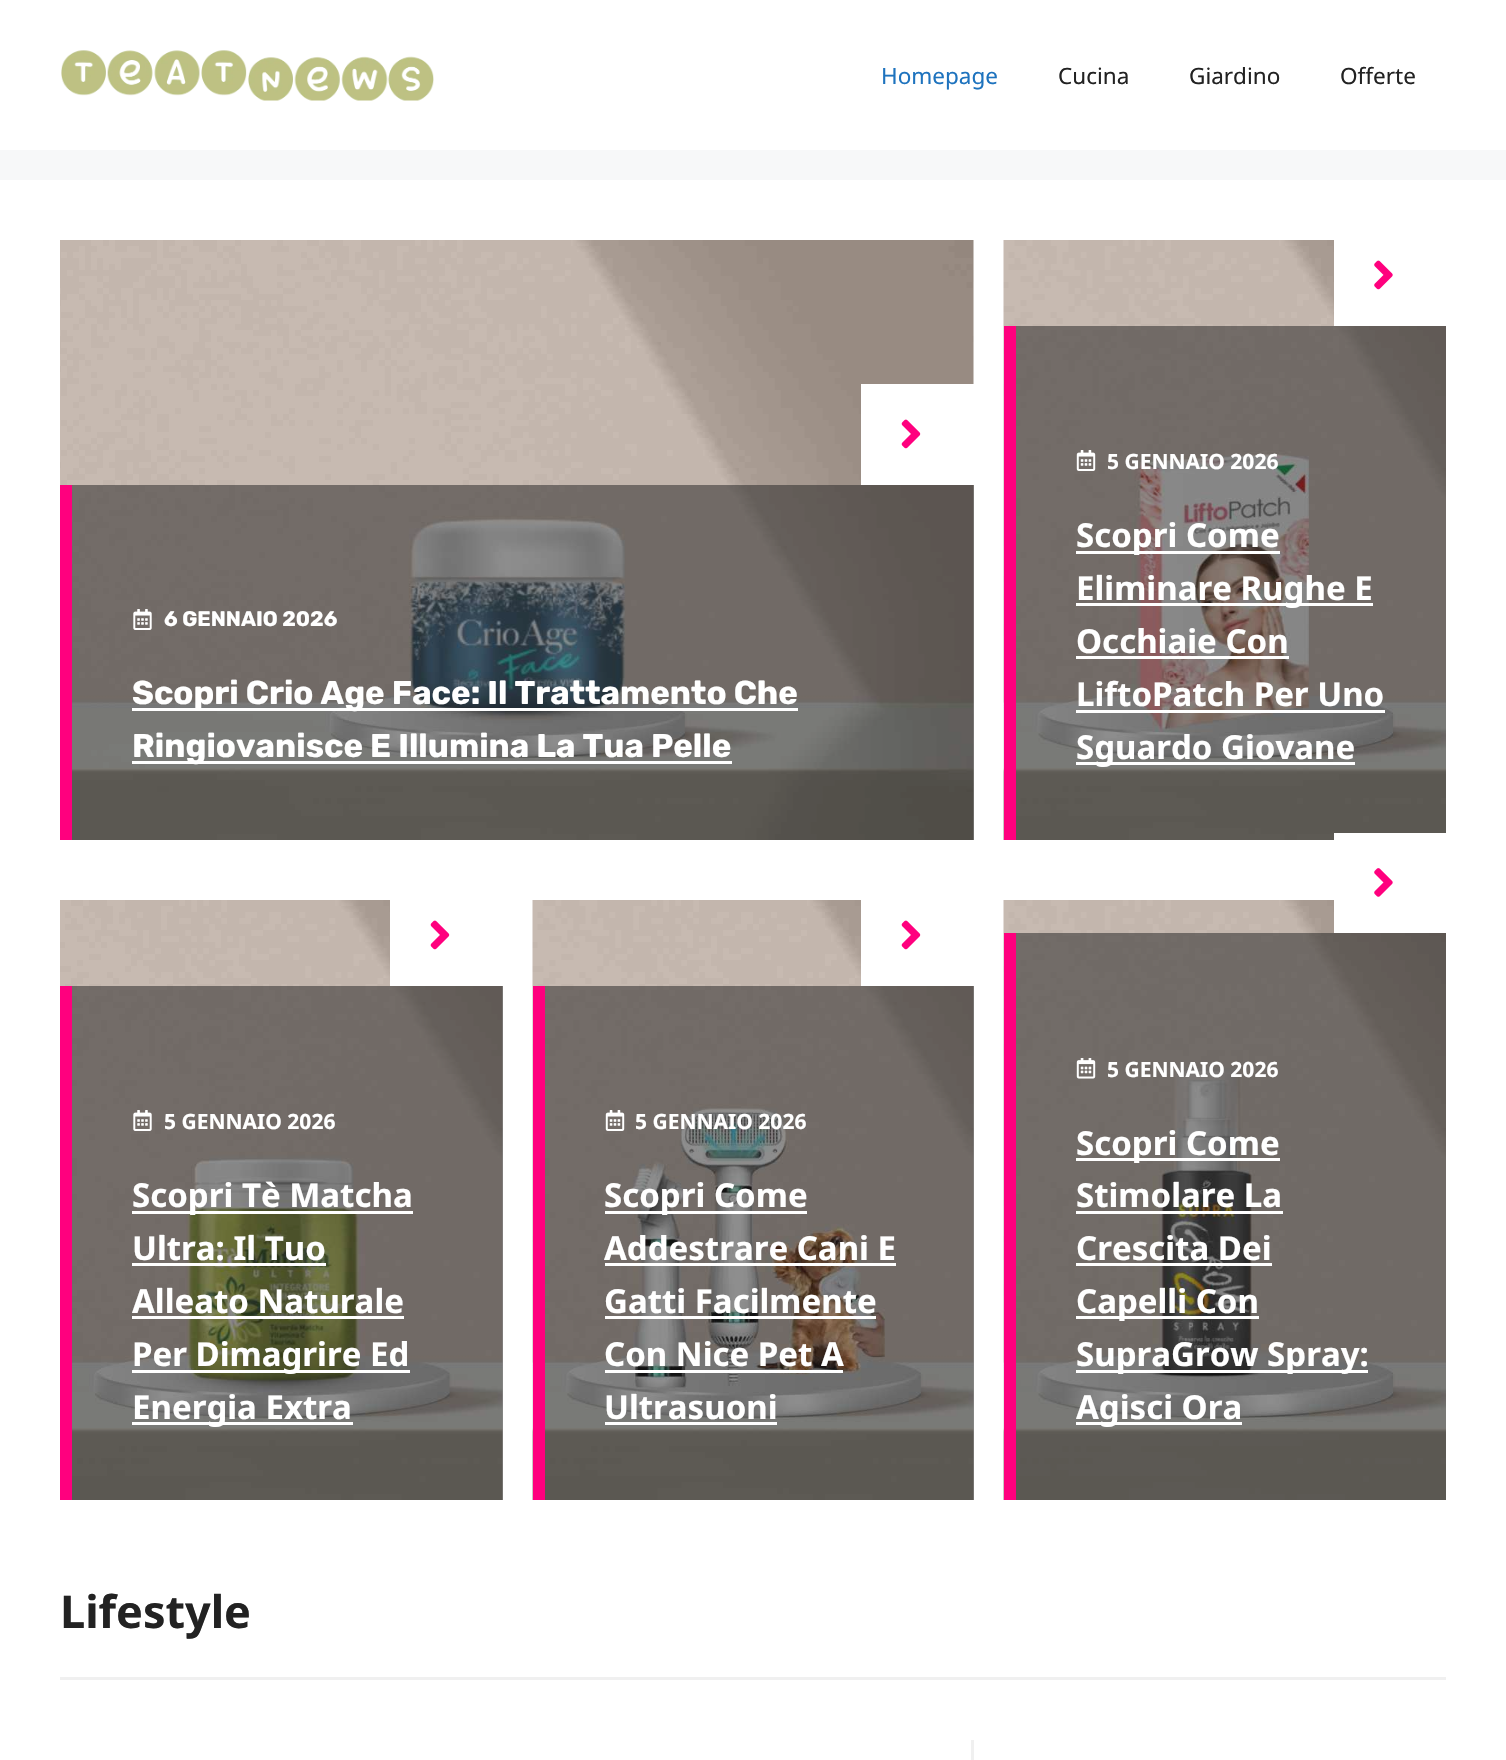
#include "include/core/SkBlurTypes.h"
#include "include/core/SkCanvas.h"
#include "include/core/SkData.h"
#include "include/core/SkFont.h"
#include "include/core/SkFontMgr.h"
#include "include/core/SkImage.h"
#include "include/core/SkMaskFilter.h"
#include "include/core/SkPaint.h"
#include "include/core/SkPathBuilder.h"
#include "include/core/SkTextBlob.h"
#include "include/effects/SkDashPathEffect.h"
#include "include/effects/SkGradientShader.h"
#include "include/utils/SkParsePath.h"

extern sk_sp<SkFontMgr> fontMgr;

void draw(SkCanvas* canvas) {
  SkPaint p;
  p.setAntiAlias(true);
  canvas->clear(SkColorSetRGB(247, 248, 249));
  p.setColor(SK_ColorWHITE);
  canvas->drawRect(SkRect::MakeLTRB(0, 0, 1506, 150), p);
  canvas->drawImageRect(SkImages::DeferredFromEncodedData(SkData::MakeFromFileName("images/1.png")), SkRect::MakeLTRB(61, 50, 434, 101), SkSamplingOptions());
  canvas->drawRect(SkRect::MakeLTRB(0, 180, 1506, 1760), p);
  canvas->drawImageRect(SkImages::DeferredFromEncodedData(SkData::MakeFromFileName("images/2.png")), SkRect::MakeLTRB(60, 240, 974, 840), SkSamplingOptions());
  canvas->drawRect(SkRect::MakeLTRB(861, 384, 974, 485), p);
  canvas->drawImageRect(SkImages::DeferredFromEncodedData(SkData::MakeFromFileName("images/3.png")), SkRect::MakeLTRB(901, 419, 921, 449), SkSamplingOptions());
  p.setColor(SkColorSetARGB(130, 33, 33, 33));
  canvas->drawRect(SkRect::MakeLTRB(72, 485, 974, 840), p);
  p.setColor(SkColorSetRGB(255, 0, 126));
  canvas->drawRect(SkRect::MakeLTRB(60, 485, 72, 840), p);
  canvas->drawImageRect(SkImages::DeferredFromEncodedData(SkData::MakeFromFileName("images/4.png")), SkRect::MakeLTRB(133, 609, 152, 630), SkSamplingOptions());
  p.setColor(SK_ColorWHITE);
  canvas->drawRect(SkRect::MakeLTRB(132, 708, 798, 711), p);
  canvas->drawRect(SkRect::MakeLTRB(132, 761, 732, 764), p);
  canvas->drawImageRect(SkImages::DeferredFromEncodedData(SkData::MakeFromFileName("images/5.png")), SkRect::MakeLTRB(1003, 240, 1446, 840), SkSamplingOptions());
  canvas->drawRect(SkRect::MakeLTRB(1334, 240, 1446, 326), p);
  canvas->drawImageRect(SkImages::DeferredFromEncodedData(SkData::MakeFromFileName("images/6.png")), SkRect::MakeLTRB(1374, 260, 1393, 290), SkSamplingOptions());
  p.setColor(SkColorSetARGB(130, 33, 33, 33));
  canvas->drawRect(SkRect::MakeLTRB(1016, 326, 1446, 840), p);
  p.setColor(SkColorSetRGB(255, 0, 126));
  canvas->drawRect(SkRect::MakeLTRB(1004, 326, 1016, 840), p);
  canvas->drawImageRect(SkImages::DeferredFromEncodedData(SkData::MakeFromFileName("images/7.png")), SkRect::MakeLTRB(1076, 450, 1096, 471), SkSamplingOptions());
  p.setColor(SK_ColorWHITE);
  canvas->drawRect(SkRect::MakeLTRB(1076, 551, 1280, 554), p);
  canvas->drawRect(SkRect::MakeLTRB(1076, 603, 1373, 606), p);
  canvas->drawRect(SkRect::MakeLTRB(1076, 656, 1289, 659), p);
  canvas->drawRect(SkRect::MakeLTRB(1076, 710, 1385, 713), p);
  canvas->drawRect(SkRect::MakeLTRB(1076, 762, 1355, 765), p);
  canvas->drawImageRect(SkImages::DeferredFromEncodedData(SkData::MakeFromFileName("images/8.png")), SkRect::MakeLTRB(60, 900, 503, 1500), SkSamplingOptions());
  canvas->drawRect(SkRect::MakeLTRB(390, 900, 503, 986), p);
  canvas->drawImageRect(SkImages::DeferredFromEncodedData(SkData::MakeFromFileName("images/3.png")), SkRect::MakeLTRB(430, 920, 450, 950), SkSamplingOptions());
  p.setColor(SkColorSetARGB(130, 33, 33, 33));
  canvas->drawRect(SkRect::MakeLTRB(72, 986, 503, 1500), p);
  p.setColor(SkColorSetRGB(255, 0, 126));
  canvas->drawRect(SkRect::MakeLTRB(60, 986, 72, 1500), p);
  canvas->drawImageRect(SkImages::DeferredFromEncodedData(SkData::MakeFromFileName("images/9.png")), SkRect::MakeLTRB(133, 1110, 152, 1131), SkSamplingOptions());
  p.setColor(SK_ColorWHITE);
  canvas->drawRect(SkRect::MakeLTRB(132, 1211, 413, 1214), p);
  canvas->drawRect(SkRect::MakeLTRB(132, 1263, 326, 1266), p);
  canvas->drawRect(SkRect::MakeLTRB(132, 1316, 404, 1319), p);
  canvas->drawRect(SkRect::MakeLTRB(132, 1370, 410, 1373), p);
  canvas->drawRect(SkRect::MakeLTRB(132, 1422, 353, 1425), p);
  canvas->drawImageRect(SkImages::DeferredFromEncodedData(SkData::MakeFromFileName("images/10.png")), SkRect::MakeLTRB(532, 900, 974, 1500), SkSamplingOptions());
  canvas->drawRect(SkRect::MakeLTRB(861, 900, 974, 986), p);
  canvas->drawImageRect(SkImages::DeferredFromEncodedData(SkData::MakeFromFileName("images/3.png")), SkRect::MakeLTRB(901, 920, 921, 950), SkSamplingOptions());
  p.setColor(SkColorSetARGB(130, 33, 33, 33));
  canvas->drawRect(SkRect::MakeLTRB(545, 986, 974, 1500), p);
  p.setColor(SkColorSetRGB(255, 0, 126));
  canvas->drawRect(SkRect::MakeLTRB(533, 986, 545, 1500), p);
  canvas->drawImageRect(SkImages::DeferredFromEncodedData(SkData::MakeFromFileName("images/7.png")), SkRect::MakeLTRB(605, 1110, 625, 1131), SkSamplingOptions());
  p.setColor(SK_ColorWHITE);
  canvas->drawRect(SkRect::MakeLTRB(605, 1211, 807, 1214), p);
  canvas->drawRect(SkRect::MakeLTRB(605, 1263, 896, 1266), p);
  canvas->drawRect(SkRect::MakeLTRB(605, 1316, 876, 1319), p);
  canvas->drawRect(SkRect::MakeLTRB(605, 1370, 843, 1373), p);
  canvas->drawRect(SkRect::MakeLTRB(605, 1422, 777, 1425), p);
  canvas->drawImageRect(SkImages::DeferredFromEncodedData(SkData::MakeFromFileName("images/11.png")), SkRect::MakeLTRB(1003, 900, 1446, 1500), SkSamplingOptions());
  canvas->drawRect(SkRect::MakeLTRB(1334, 833, 1446, 933), p);
  canvas->drawImageRect(SkImages::DeferredFromEncodedData(SkData::MakeFromFileName("images/12.png")), SkRect::MakeLTRB(1374, 868, 1393, 897), SkSamplingOptions());
  p.setColor(SkColorSetRGB(255, 0, 126));
  canvas->drawRect(SkRect::MakeLTRB(1004, 933, 1016, 1500), p);
  canvas->drawImageRect(SkImages::DeferredFromEncodedData(SkData::MakeFromFileName("images/13.png")), SkRect::MakeLTRB(1076, 1058, 1096, 1079), SkSamplingOptions());
  p.setColor(SK_ColorWHITE);
  canvas->drawRect(SkRect::MakeLTRB(1076, 1158, 1280, 1161), p);
  canvas->drawRect(SkRect::MakeLTRB(1076, 1211, 1283, 1214), p);
  canvas->drawRect(SkRect::MakeLTRB(1076, 1263, 1272, 1266), p);
  canvas->drawRect(SkRect::MakeLTRB(1076, 1316, 1259, 1319), p);
  canvas->drawRect(SkRect::MakeLTRB(1076, 1370, 1368, 1373), p);
  canvas->drawRect(SkRect::MakeLTRB(1076, 1422, 1242, 1425), p);
  p.setColor(SkColorSetRGB(240, 240, 240));
  canvas->drawRect(SkRect::MakeLTRB(60, 1677, 1446, 1680), p);
  canvas->drawRect(SkRect::MakeLTRB(971, 1740, 974, 1760), p);
  SkFont font1(fontMgr->matchFamilyStyle("Noto Sans", SkFontStyle::Normal()), 22.5f);
  font1.setSubpixel(true);
  p.setColor(SkColorSetRGB(30, 115, 190));
  canvas->drawString("Homepage", 881, 84, font1, p);
  p.setColor(SkColorSetRGB(34, 34, 34));
  canvas->drawString("Cucina", 1058, 84, font1, p);
  canvas->drawString("Giardino", 1189, 84, font1, p);
  canvas->drawString("Offerte", 1340, 84, font1, p);
  SkFont font2(fontMgr->matchFamilyStyle("Rubik", SkFontStyle::Bold()), 21);
  font2.setSubpixel(true);
  p.setColor(SK_ColorWHITE);
  canvas->drawString("6 GENNAIO 2026", 164, 626, font2, p);
  SkFont font3(fontMgr->matchFamilyStyle("Rubik", SkFontStyle::Bold()), 33);
  font3.setSubpixel(true);
  canvas->drawString("Scopri Crio Age Face: Il Trattamento Che", 132, 704, font3, p);
  canvas->drawString("Ringiovanisce E Illumina La Tua Pelle", 132, 757, font3, p);
  SkFont font4(fontMgr->matchFamilyStyle("Noto Sans", SkFontStyle::Bold()), 21);
  font4.setSubpixel(true);
  canvas->drawString("5 GENNAIO 2026", 1107, 469, font4, p);
  SkFont font5(fontMgr->matchFamilyStyle("Noto Sans", SkFontStyle::Bold()), 33);
  font5.setSubpixel(true);
  canvas->drawString("Scopri Come", 1076, 547, font5, p);
  canvas->drawString("Eliminare Rughe E", 1076, 600, font5, p);
  canvas->drawString("Occhiaie Con", 1076, 653, font5, p);
  canvas->drawString("LiftoPatch Per Uno", 1076, 706, font5, p);
  canvas->drawString("Sguardo Giovane", 1076, 759, font5, p);
  canvas->drawString("5 GENNAIO 2026", 164, 1129, font4, p);
  canvas->drawString("Scopri Tè Matcha", 132, 1207, font5, p);
  canvas->drawString("Ultra: Il Tuo", 132, 1260, font5, p);
  canvas->drawString("Alleato Naturale", 132, 1313, font5, p);
  canvas->drawString("Per Dimagrire Ed", 132, 1366, font5, p);
  canvas->drawString("Energia Extra", 132, 1419, font5, p);
  canvas->drawString("5 GENNAIO 2026", 635, 1129, font4, p);
  canvas->drawString("Scopri Come", 604, 1207, font5, p);
  canvas->drawString("Addestrare Cani E", 604, 1260, font5, p);
  canvas->drawString("Gatti Facilmente", 604, 1313, font5, p);
  canvas->drawString("Con Nice Pet A", 604, 1366, font5, p);
  canvas->drawString("Ultrasuoni", 604, 1419, font5, p);
  canvas->drawString("5 GENNAIO 2026", 1107, 1077, font4, p);
  canvas->drawString("Scopri Come", 1076, 1155, font5, p);
  canvas->drawString("Stimolare La", 1076, 1207, font5, p);
  canvas->drawString("Crescita Dei", 1076, 1260, font5, p);
  canvas->drawString("Capelli Con", 1076, 1313, font5, p);
  canvas->drawString("SupraGrow Spray:", 1076, 1366, font5, p);
  canvas->drawString("Agisci Ora", 1076, 1419, font5, p);
  SkFont font6(fontMgr->matchFamilyStyle("Noto Sans", SkFontStyle::Bold()), 45);
  font6.setSubpixel(true);
  p.setColor(SkColorSetRGB(34, 34, 34));
  canvas->drawString("Lifestyle", 60, 1628, font6, p);
}
